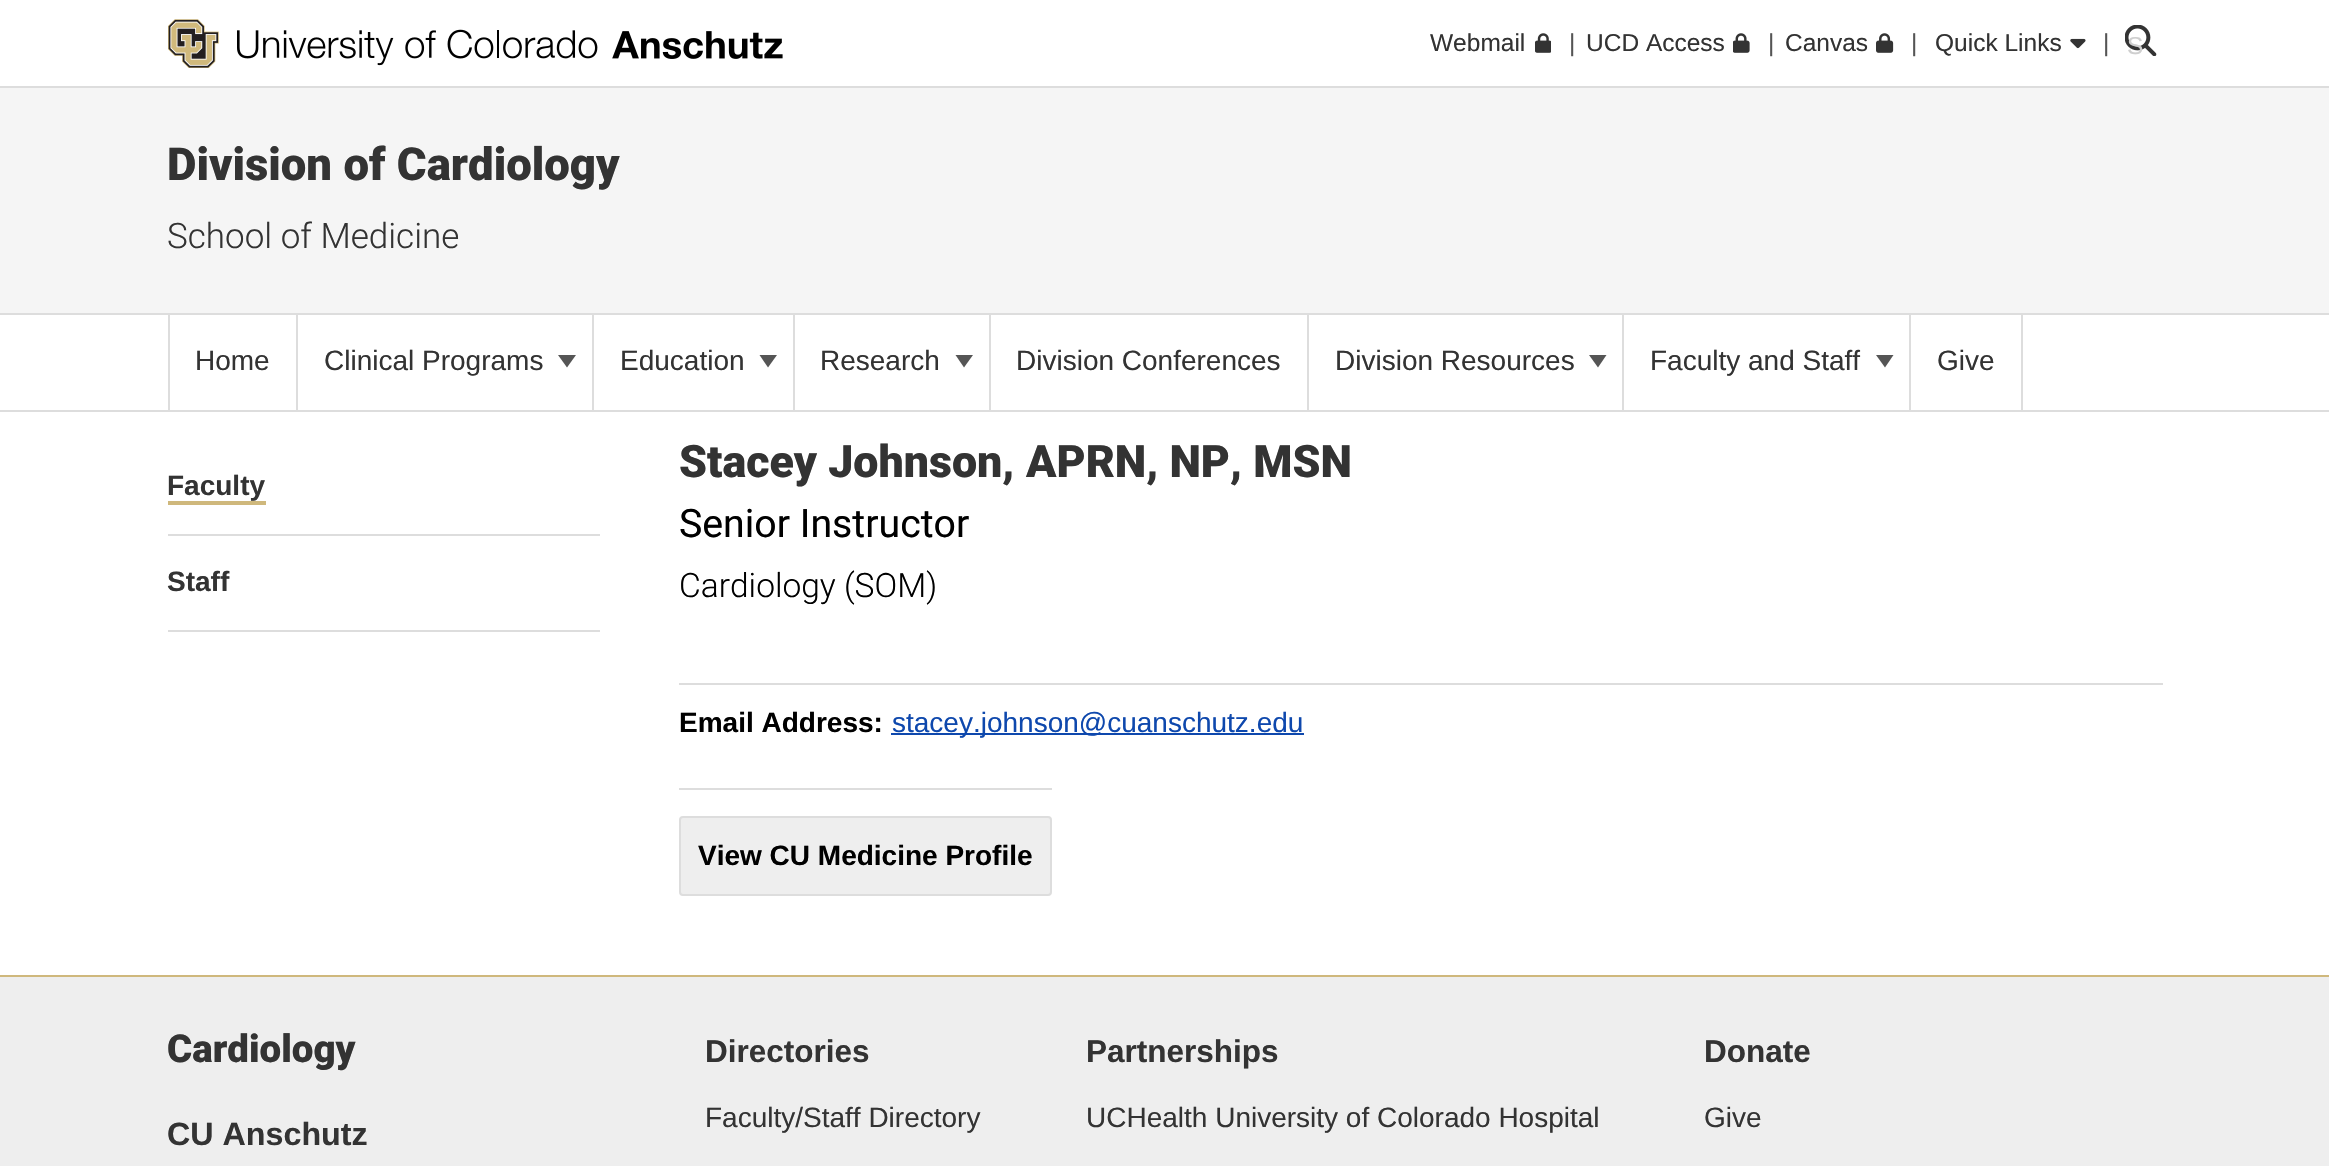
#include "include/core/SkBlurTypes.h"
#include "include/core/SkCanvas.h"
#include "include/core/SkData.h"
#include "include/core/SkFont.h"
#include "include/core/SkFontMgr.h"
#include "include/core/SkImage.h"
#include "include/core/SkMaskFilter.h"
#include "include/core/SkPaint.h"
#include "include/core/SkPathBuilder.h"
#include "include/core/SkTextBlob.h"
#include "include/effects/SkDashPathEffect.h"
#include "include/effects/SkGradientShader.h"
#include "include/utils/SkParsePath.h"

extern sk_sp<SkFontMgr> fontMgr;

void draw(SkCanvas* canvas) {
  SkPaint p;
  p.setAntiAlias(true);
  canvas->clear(SK_ColorWHITE);
  p.setColor(SkColorSetRGB(221, 221, 221));
  canvas->drawRect(SkRect::MakeLTRB(0, 86, 2329, 88), p);
  canvas->drawImageRect(SkImages::DeferredFromEncodedData(SkData::MakeFromFileName("images/1.png")), SkRect::MakeLTRB(168, 19, 783, 68), SkSamplingOptions());
  canvas->drawImageRect(SkImages::DeferredFromEncodedData(SkData::MakeFromFileName("images/2.png")), SkRect::MakeLTRB(1535, 33, 1551, 53), SkSamplingOptions());
  canvas->drawImageRect(SkImages::DeferredFromEncodedData(SkData::MakeFromFileName("images/3.png")), SkRect::MakeLTRB(1733, 33, 1750, 53), SkSamplingOptions());
  canvas->drawImageRect(SkImages::DeferredFromEncodedData(SkData::MakeFromFileName("images/4.png")), SkRect::MakeLTRB(1876, 33, 1894, 53), SkSamplingOptions());
  canvas->drawImageRect(SkImages::DeferredFromEncodedData(SkData::MakeFromFileName("images/5.png")), SkRect::MakeLTRB(2070, 38, 2086, 49), SkSamplingOptions());
  canvas->drawImageRect(SkImages::DeferredFromEncodedData(SkData::MakeFromFileName("images/6.png")), SkRect::MakeLTRB(2125, 25, 2157, 56), SkSamplingOptions());
  p.setColor(SkColorSetRGB(245, 245, 245));
  canvas->drawRect(SkRect::MakeLTRB(0, 88, 2329, 313), p);
  p.setColor(SkColorSetRGB(221, 221, 221));
  canvas->drawRect(SkRect::MakeLTRB(0, 313, 2329, 315), p);
  canvas->drawRect(SkRect::MakeLTRB(0, 410, 2329, 412), p);
  canvas->drawRect(SkRect::MakeLTRB(296, 315, 298, 410), p);
  canvas->drawRect(SkRect::MakeLTRB(168, 315, 170, 410), p);
  canvas->drawRect(SkRect::MakeLTRB(592, 315, 594, 410), p);
  p.setColor(SkColorSetRGB(85, 85, 85));
  canvas->drawPath(SkPathBuilder().moveTo(558, 355).lineTo(576, 355).lineTo(567, 367.5f).close().detach(), p);
  p.setColor(SkColorSetRGB(221, 221, 221));
  canvas->drawRect(SkRect::MakeLTRB(793, 315, 795, 410), p);
  p.setColor(SkColorSetRGB(85, 85, 85));
  canvas->drawPath(SkPathBuilder().moveTo(759.5f, 355).lineTo(777, 355).lineTo(768, 367.5f).close().detach(), p);
  p.setColor(SkColorSetRGB(221, 221, 221));
  canvas->drawRect(SkRect::MakeLTRB(989, 315, 991, 410), p);
  p.setColor(SkColorSetRGB(85, 85, 85));
  canvas->drawPath(SkPathBuilder().moveTo(955.5f, 355).lineTo(973, 355).lineTo(964, 367.5f).close().detach(), p);
  p.setColor(SkColorSetRGB(221, 221, 221));
  canvas->drawRect(SkRect::MakeLTRB(1307, 315, 1309, 410), p);
  canvas->drawRect(SkRect::MakeLTRB(1622, 315, 1624, 410), p);
  p.setColor(SkColorSetRGB(85, 85, 85));
  canvas->drawPath(SkPathBuilder().moveTo(1589, 355).lineTo(1606.5f, 355).lineTo(1598, 367.5f).close().detach(), p);
  p.setColor(SkColorSetRGB(221, 221, 221));
  canvas->drawRect(SkRect::MakeLTRB(1909, 315, 1911, 410), p);
  p.setColor(SkColorSetRGB(85, 85, 85));
  canvas->drawPath(SkPathBuilder().moveTo(1876, 355).lineTo(1893.5f, 355).lineTo(1885, 367.5f).close().detach(), p);
  p.setColor(SkColorSetRGB(221, 221, 221));
  canvas->drawRect(SkRect::MakeLTRB(2021, 315, 2023, 410), p);
  canvas->drawRect(SkRect::MakeLTRB(168, 534, 600, 536), p);
  p.setColor(SkColorSetRGB(207, 184, 124));
  canvas->drawRect(SkRect::MakeLTRB(168, 501, 266, 505), p);
  p.setColor(SkColorSetRGB(221, 221, 221));
  canvas->drawRect(SkRect::MakeLTRB(168, 630, 600, 632), p);
  canvas->drawRect(SkRect::MakeLTRB(679, 683, 2163, 685), p);
  p.setColor(SkColorSetRGB(14, 72, 173));
  canvas->drawRect(SkRect::MakeLTRB(891, 733, 1304, 735), p);
  p.setColor(SkColorSetRGB(221, 221, 221));
  canvas->drawRect(SkRect::MakeLTRB(679, 788, 1052, 790), p);
  p.setColor(SkColorSetRGB(238, 238, 238));
  canvas->drawRoundRect(SkRect::MakeLTRB(680, 817, 1051, 895), 3, 3, p);
  p.setStyle(SkPaint::kStroke_Style);
  p.setStrokeWidth(2);
  p.setColor(SkColorSetRGB(221, 221, 221));
  canvas->drawRoundRect(SkRect::MakeLTRB(680, 817, 1051, 895), 3, 3, p);
  p.setStyle(SkPaint::kFill_Style);
  p.setColor(SkColorSetRGB(238, 238, 238));
  canvas->drawRect(SkRect::MakeLTRB(0, 977, 2329, 1166), p);
  p.setColor(SkColorSetRGB(207, 184, 124));
  canvas->drawRect(SkRect::MakeLTRB(0, 975, 2329, 977), p);
  SkFont font1(fontMgr->matchFamilyStyle("Liberation Sans", SkFontStyle::Normal()), 24.5f);
  font1.setSubpixel(true);
  p.setColor(SkColorSetRGB(51, 51, 51));
  canvas->drawString("Webmail", 1430, 51, font1, p);
  p.setColor(SkColorSetRGB(85, 85, 85));
  canvas->drawString("|", 1569, 51, font1, p);
  p.setColor(SkColorSetRGB(51, 51, 51));
  canvas->drawString("UCD Access", 1586, 51, font1, p);
  p.setColor(SkColorSetRGB(85, 85, 85));
  canvas->drawString("|", 1768, 51, font1, p);
  p.setColor(SkColorSetRGB(51, 51, 51));
  canvas->drawString("Canvas", 1785, 51, font1, p);
  p.setColor(SkColorSetRGB(85, 85, 85));
  canvas->drawString("|", 1911, 51, font1, p);
  p.setColor(SkColorSetRGB(51, 51, 51));
  canvas->drawString("Quick Links", 1935, 51, font1, p);
  p.setColor(SkColorSetRGB(85, 85, 85));
  canvas->drawString("|", 2103, 51, font1, p);
  p.setColor(SkColorSetRGB(207, 207, 207));
  canvas->drawString("S", 2127, 54, font1, p);
  SkFont font2(fontMgr->matchFamilyStyle("Roboto", SkFontStyle(900, SkFontStyle::kNormal_Width, SkFontStyle::kUpright_Slant)), 45.5f);
  font2.setSubpixel(true);
  p.setColor(SkColorSetRGB(51, 51, 51));
  canvas->drawString("Division of Cardiology", 167, 180, font2, p);
  SkFont font3(fontMgr->matchFamilyStyle("Roboto", SkFontStyle(300, SkFontStyle::kNormal_Width, SkFontStyle::kUpright_Slant)), 35);
  font3.setSubpixel(true);
  canvas->drawString("School of Medicine", 167, 248, font3, p);
  SkFont font4(fontMgr->matchFamilyStyle("Liberation Sans", SkFontStyle::Normal()), 28);
  font4.setSubpixel(true);
  canvas->drawString("Home", 195, 370, font4, p);
  canvas->drawString("Clinical Programs", 324, 370, font4, p);
  canvas->drawString("Education", 620, 370, font4, p);
  canvas->drawString("Research", 820, 370, font4, p);
  canvas->drawString("Division Conferences", 1016, 370, font4, p);
  canvas->drawString("Division Resources", 1335, 370, font4, p);
  canvas->drawString("Faculty and Staff", 1650, 370, font4, p);
  canvas->drawString("Give", 1937, 370, font4, p);
  SkFont font5(fontMgr->matchFamilyStyle("Liberation Sans", SkFontStyle::Bold()), 28);
  font5.setSubpixel(true);
  canvas->drawString("Faculty", 167, 495, font5, p);
  canvas->drawString("Staff", 167, 591, font5, p);
  SkFont font6(fontMgr->matchFamilyStyle("Roboto", SkFontStyle(900, SkFontStyle::kNormal_Width, SkFontStyle::kUpright_Slant)), 44.75f);
  font6.setSubpixel(true);
  canvas->drawString("Stacey Johnson,", 679, 477, font6, p);
  canvas->drawString("APRN, NP, MSN", 1026, 477, font6, p);
  SkFont font7(fontMgr->matchFamilyStyle("Roboto", SkFontStyle::Normal()), 39.25f);
  font7.setSubpixel(true);
  p.setColor(SK_ColorBLACK);
  canvas->drawString("Senior Instructor", 679, 537, font7, p);
  SkFont font8(fontMgr->matchFamilyStyle("Roboto", SkFontStyle(300, SkFontStyle::kNormal_Width, SkFontStyle::kUpright_Slant)), 33.5f);
  font8.setSubpixel(true);
  canvas->drawString("Cardiology (SOM)", 679, 597, font8, p);
  canvas->drawString("Email Address:", 679, 732, font5, p);
  p.setColor(SkColorSetRGB(14, 72, 173));
  canvas->drawString("stacey.johnson@cuanschutz.edu", 892, 732, font4, p);
  p.setColor(SK_ColorBLACK);
  canvas->drawString("View CU Medicine Profile", 698, 865, font5, p);
  SkFont font9(fontMgr->matchFamilyStyle("Roboto", SkFontStyle(900, SkFontStyle::kNormal_Width, SkFontStyle::kUpright_Slant)), 38.5f);
  font9.setSubpixel(true);
  p.setColor(SkColorSetRGB(51, 51, 51));
  canvas->drawString("Cardiology", 167, 1062, font9, p);
  SkFont font10(fontMgr->matchFamilyStyle("Liberation Sans", SkFontStyle::Bold()), 32.25f);
  font10.setSubpixel(true);
  canvas->drawString("CU Anschutz", 167, 1145, font10, p);
  SkFont font11(fontMgr->matchFamilyStyle("Liberation Sans", SkFontStyle::Bold()), 31.5f);
  font11.setSubpixel(true);
  canvas->drawString("Directories", 705, 1062, font11, p);
  canvas->drawString("Faculty/Staff Directory", 705, 1127, font4, p);
  canvas->drawString("Partnerships", 1086, 1062, font11, p);
  canvas->drawString("UCHealth University of Colorado Hospital", 1086, 1127, font4, p);
  canvas->drawString("Donate", 1704, 1062, font11, p);
  canvas->drawString("Give", 1704, 1127, font4, p);
}
